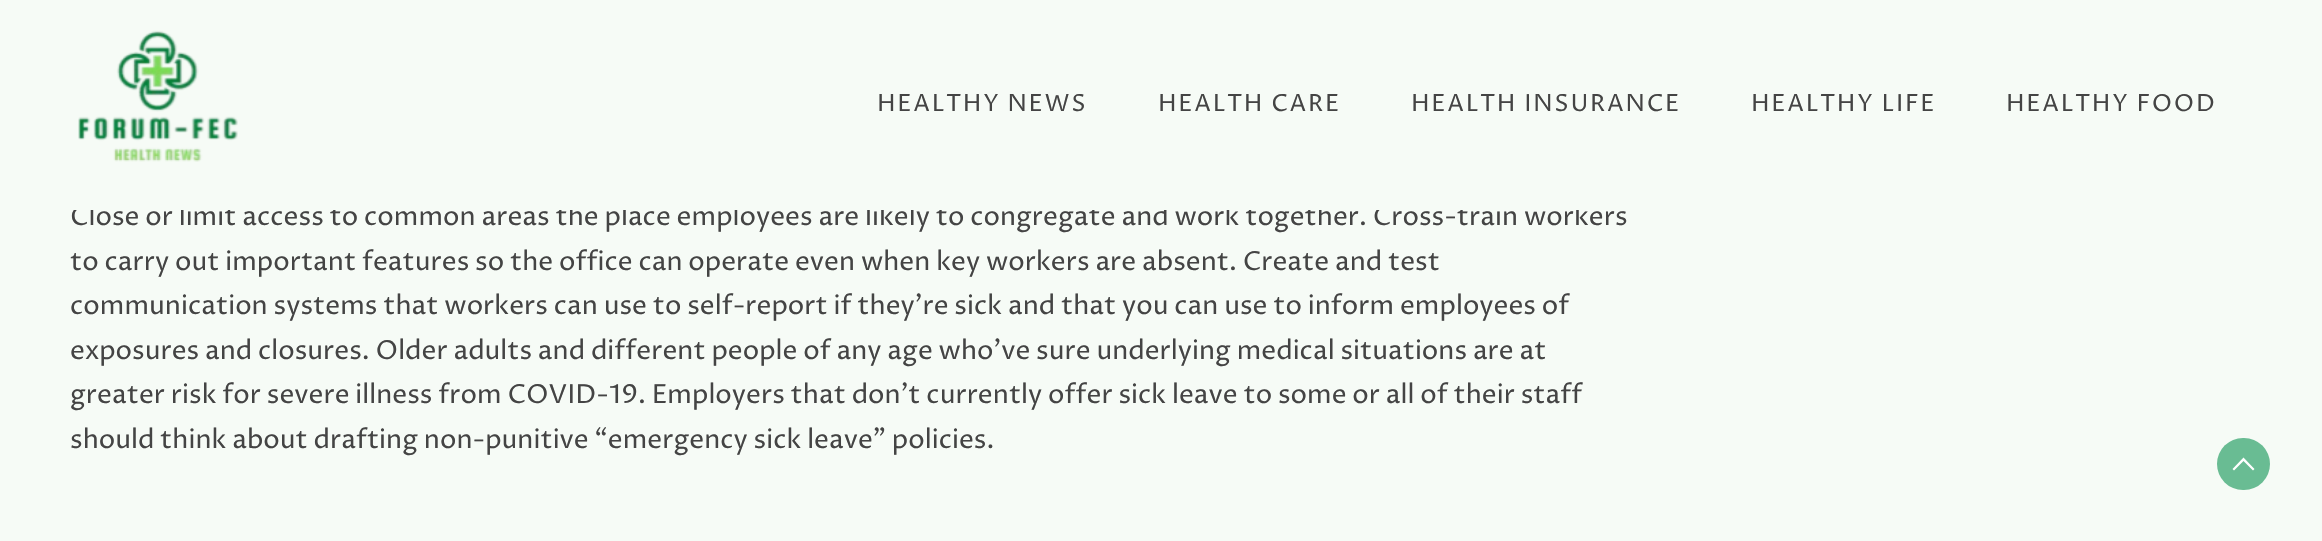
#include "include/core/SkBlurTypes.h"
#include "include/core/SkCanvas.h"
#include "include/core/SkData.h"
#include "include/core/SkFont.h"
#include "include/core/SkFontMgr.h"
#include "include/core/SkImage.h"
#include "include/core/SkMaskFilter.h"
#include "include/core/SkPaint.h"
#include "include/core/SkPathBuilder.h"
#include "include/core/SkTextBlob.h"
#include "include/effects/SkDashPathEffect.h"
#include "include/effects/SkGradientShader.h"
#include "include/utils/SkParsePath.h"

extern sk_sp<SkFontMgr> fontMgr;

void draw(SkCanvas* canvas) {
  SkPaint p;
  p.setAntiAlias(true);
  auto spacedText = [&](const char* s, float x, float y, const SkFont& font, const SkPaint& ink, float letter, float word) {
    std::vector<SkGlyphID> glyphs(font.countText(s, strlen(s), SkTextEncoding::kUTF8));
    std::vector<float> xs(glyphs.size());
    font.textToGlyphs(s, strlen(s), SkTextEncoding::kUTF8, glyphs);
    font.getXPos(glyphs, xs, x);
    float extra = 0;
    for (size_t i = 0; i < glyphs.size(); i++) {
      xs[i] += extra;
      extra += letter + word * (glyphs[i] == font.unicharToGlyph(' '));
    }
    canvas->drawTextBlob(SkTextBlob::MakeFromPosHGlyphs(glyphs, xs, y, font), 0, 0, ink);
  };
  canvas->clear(SkColorSetRGB(246, 251, 246));
  canvas->drawImageRect(SkImages::DeferredFromEncodedData(SkData::MakeFromFileName("images/1.png")), SkRect::MakeLTRB(78, 30, 238, 162), SkSamplingOptions());
  p.setColor(SkColorSetRGB(105, 188, 147));
  canvas->drawRoundRect(SkRect::MakeLTRB(2217, 438, 2270, 490), 26, 26, p);
  p.setColor(SK_ColorWHITE);
  canvas->drawPath(SkPathBuilder().moveTo(2254.5f, 469).lineTo(2253, 470.5f).lineTo(2243.5f, 461).lineTo(2234, 470.5f).lineTo(2232.5f, 469).lineTo(2243.5f, 457.5f).lineTo(2254.5f, 469).detach(), p);
  SkFont font1(fontMgr->matchFamilyStyle("Proza Libre", SkFontStyle::Normal()), 23.6f);
  font1.setSubpixel(true);
  p.setColor(SkColorSetRGB(68, 68, 68));
  spacedText("HEALTHY NEWS", 877, 111, font1, p, 1.75f, 0);
  spacedText("HEALTH CARE", 1158, 111, font1, p, 1.75f, 0);
  spacedText("HEALTH INSURANCE", 1411, 111, font1, p, 1.75f, 0);
  spacedText("HEALTHY LIFE", 1751, 111, font1, p, 1.75f, 0);
  spacedText("HEALTHY FOOD", 2006, 111, font1, p, 1.75f, 0);
  SkFont font2(fontMgr->matchFamilyStyle("Proza Libre", SkFontStyle::Normal()), 26.25f);
  font2.setSubpixel(true);
  canvas->drawString("Close or limit access to common areas the place employees are likely to congregate and work together. Cross-train workers", 70, 225, font2, p);
  p.setColor(SkColorSetRGB(246, 251, 246));
  canvas->drawRect(SkRect::MakeLTRB(73, 204, 1579, 210), p);
  p.setColor(SkColorSetRGB(68, 68, 68));
  canvas->drawString("to carry out important features so the office can operate even when key workers are absent. Create and test", 70, 270, font2, p);
  canvas->drawString("communication systems that workers can use to self-report if they’re sick and that you can use to inform employees of", 70, 314, font2, p);
  canvas->drawString("exposures and closures. Older adults and different people of any age who’ve sure underlying medical situations are at", 70, 359, font2, p);
  canvas->drawString("greater risk for severe illness from COVID-19. Employers that don’t currently offer sick leave to some or all of their staff", 70, 403, font2, p);
  canvas->drawString("should think about drafting non-punitive “emergency sick leave” policies.", 70, 448, font2, p);
}
